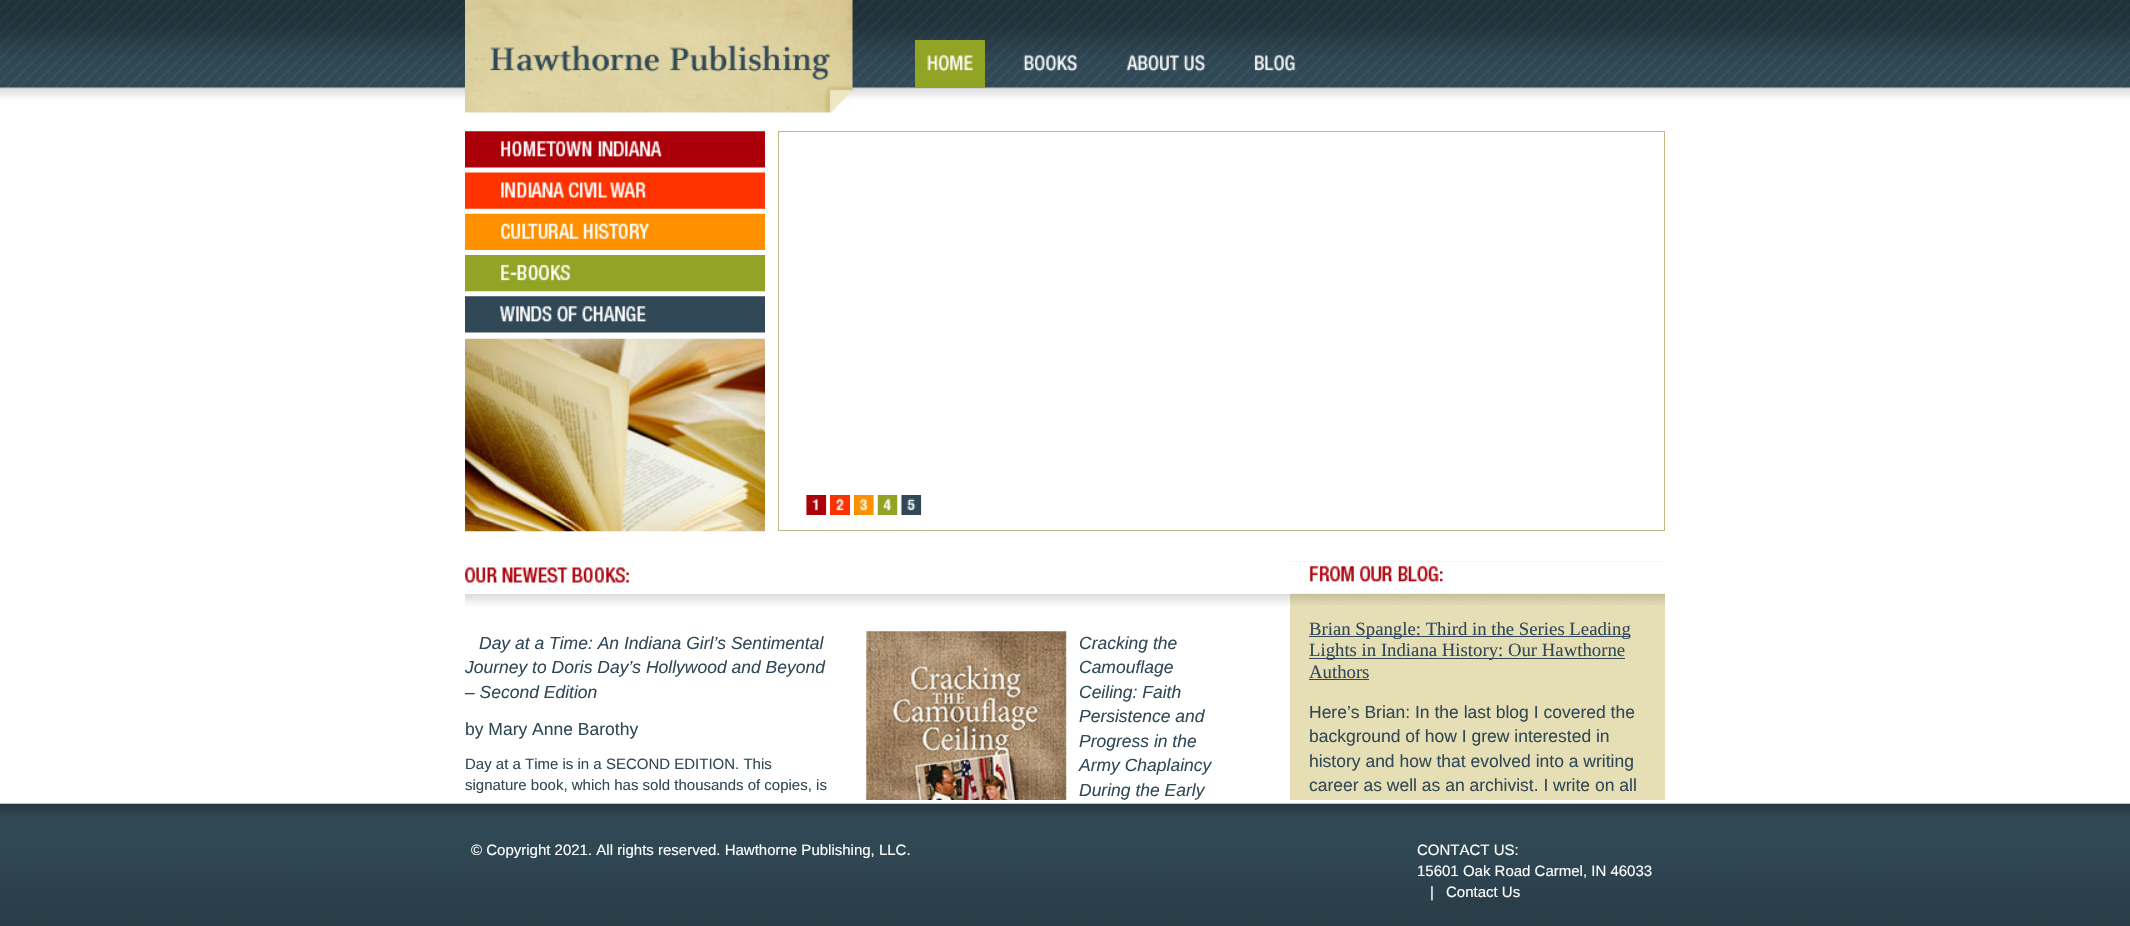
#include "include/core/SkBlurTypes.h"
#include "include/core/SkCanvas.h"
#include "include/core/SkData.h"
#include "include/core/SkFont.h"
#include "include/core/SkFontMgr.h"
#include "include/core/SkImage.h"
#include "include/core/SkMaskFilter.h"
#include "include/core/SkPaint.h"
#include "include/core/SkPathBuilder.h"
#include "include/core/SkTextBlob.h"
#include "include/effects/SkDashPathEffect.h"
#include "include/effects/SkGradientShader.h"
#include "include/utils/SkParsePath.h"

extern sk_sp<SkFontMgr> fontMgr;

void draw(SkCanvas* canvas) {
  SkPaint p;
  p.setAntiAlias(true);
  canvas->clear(SK_ColorWHITE);
  canvas->drawImageRect(SkImages::DeferredFromEncodedData(SkData::MakeFromFileName("images/1.png")), SkRect::MakeLTRB(0, 0, 2130, 100), SkSamplingOptions());
  canvas->drawImageRect(SkImages::DeferredFromEncodedData(SkData::MakeFromFileName("images/2.png")), SkRect::MakeLTRB(465, 0, 853, 113), SkSamplingOptions());
  canvas->drawImageRect(SkImages::DeferredFromEncodedData(SkData::MakeFromFileName("images/3.png")), SkRect::MakeLTRB(915, 40, 985, 88), SkSamplingOptions());
  canvas->drawImageRect(SkImages::DeferredFromEncodedData(SkData::MakeFromFileName("images/4.png")), SkRect::MakeLTRB(1023, 54, 1078, 72), SkSamplingOptions());
  canvas->drawImageRect(SkImages::DeferredFromEncodedData(SkData::MakeFromFileName("images/5.png")), SkRect::MakeLTRB(1126, 54, 1206, 72), SkSamplingOptions());
  canvas->drawImageRect(SkImages::DeferredFromEncodedData(SkData::MakeFromFileName("images/6.png")), SkRect::MakeLTRB(1254, 54, 1296, 72), SkSamplingOptions());
  canvas->drawImageRect(SkImages::DeferredFromEncodedData(SkData::MakeFromFileName("images/7.png")), SkRect::MakeLTRB(465, 131, 765, 168), SkSamplingOptions());
  canvas->drawImageRect(SkImages::DeferredFromEncodedData(SkData::MakeFromFileName("images/8.png")), SkRect::MakeLTRB(465, 172, 765, 209), SkSamplingOptions());
  canvas->drawImageRect(SkImages::DeferredFromEncodedData(SkData::MakeFromFileName("images/9.png")), SkRect::MakeLTRB(465, 213, 765, 250), SkSamplingOptions());
  canvas->drawImageRect(SkImages::DeferredFromEncodedData(SkData::MakeFromFileName("images/10.png")), SkRect::MakeLTRB(465, 255, 765, 292), SkSamplingOptions());
  canvas->drawImageRect(SkImages::DeferredFromEncodedData(SkData::MakeFromFileName("images/11.png")), SkRect::MakeLTRB(465, 296, 765, 333), SkSamplingOptions());
  canvas->drawImageRect(SkImages::DeferredFromEncodedData(SkData::MakeFromFileName("images/12.png")), SkRect::MakeLTRB(465, 338, 765, 532), SkSamplingOptions());
  p.setStyle(SkPaint::kStroke_Style);
  p.setStrokeWidth(1);
  p.setColor(SkColorSetRGB(197, 183, 136));
  canvas->drawRect(SkRect::MakeLTRB(778.5f, 131.5f, 1664.5f, 530.5f), p);
  canvas->drawImageRect(SkImages::DeferredFromEncodedData(SkData::MakeFromFileName("images/13.png")), SkRect::MakeLTRB(806, 495, 827, 515), SkSamplingOptions());
  canvas->drawImageRect(SkImages::DeferredFromEncodedData(SkData::MakeFromFileName("images/14.png")), SkRect::MakeLTRB(830, 495, 850, 515), SkSamplingOptions());
  canvas->drawImageRect(SkImages::DeferredFromEncodedData(SkData::MakeFromFileName("images/15.png")), SkRect::MakeLTRB(853, 495, 874, 515), SkSamplingOptions());
  canvas->drawImageRect(SkImages::DeferredFromEncodedData(SkData::MakeFromFileName("images/16.png")), SkRect::MakeLTRB(877, 495, 898, 515), SkSamplingOptions());
  canvas->drawImageRect(SkImages::DeferredFromEncodedData(SkData::MakeFromFileName("images/17.png")), SkRect::MakeLTRB(901, 495, 922, 515), SkSamplingOptions());
  canvas->drawImageRect(SkImages::DeferredFromEncodedData(SkData::MakeFromFileName("images/18.png")), SkRect::MakeLTRB(465, 593, 1290, 606), SkSamplingOptions());
  canvas->drawImageRect(SkImages::DeferredFromEncodedData(SkData::MakeFromFileName("images/19.png")), SkRect::MakeLTRB(465, 567, 1290, 594), SkSamplingOptions());
  canvas->drawImageRect(SkImages::DeferredFromEncodedData(SkData::MakeFromFileName("images/20.png")), SkRect::MakeLTRB(866, 631, 1067, 800), SkSamplingOptions());
  p.setStyle(SkPaint::kFill_Style);
  p.setColor(SkColorSetRGB(230, 222, 181));
  canvas->drawRect(SkRect::MakeLTRB(1290, 561, 1665, 800), p);
  canvas->drawImageRect(SkImages::DeferredFromEncodedData(SkData::MakeFromFileName("images/21.png")), SkRect::MakeLTRB(1290, 593, 1665, 605), SkSamplingOptions());
  canvas->drawImageRect(SkImages::DeferredFromEncodedData(SkData::MakeFromFileName("images/22.png")), SkRect::MakeLTRB(1290, 561, 1665, 594), SkSamplingOptions());
  p.setColor(SkColorSetRGB(49, 73, 86));
  canvas->drawRect(SkRect::MakeLTRB(1309, 636, 1630, 637), p);
  canvas->drawRect(SkRect::MakeLTRB(1309, 658, 1625, 659), p);
  canvas->drawRect(SkRect::MakeLTRB(1309, 679, 1369, 680), p);
  canvas->drawImageRect(SkImages::DeferredFromEncodedData(SkData::MakeFromFileName("images/23.png")), SkRect::MakeLTRB(0, 803, 2130, 926), SkSamplingOptions());
  SkFont font1(fontMgr->matchFamilyStyle("Liberation Sans", SkFontStyle::Italic()), 17.5f);
  font1.setSubpixel(true);
  canvas->drawString("Day at a Time: An Indiana Girl’s Sentimental", 479, 649, font1, p);
  canvas->drawString("Journey to Doris Day’s Hollywood and Beyond", 465, 673, font1, p);
  canvas->drawString("– Second Edition", 465, 698, font1, p);
  SkFont font2(fontMgr->matchFamilyStyle("Liberation Sans", SkFontStyle::Normal()), 17.5f);
  font2.setSubpixel(true);
  canvas->drawString("by Mary Anne Barothy", 465, 735, font2, p);
  SkFont font3(fontMgr->matchFamilyStyle("Liberation Sans", SkFontStyle::Normal()), 15);
  font3.setSubpixel(true);
  canvas->drawString("Day at a Time is in a SECOND EDITION. This", 465, 769, font3, p);
  canvas->drawString("signature book, which has sold thousands of copies, is", 465, 790, font3, p);
  canvas->drawString("Cracking the", 1079, 649, font1, p);
  canvas->drawString("Camouflage", 1079, 673, font1, p);
  canvas->drawString("Ceiling: Faith", 1079, 698, font1, p);
  canvas->drawString("Persistence and", 1079, 722, font1, p);
  canvas->drawString("Progress in the", 1079, 747, font1, p);
  canvas->drawString("Army Chaplaincy", 1079, 771, font1, p);
  canvas->drawString("During the Early", 1079, 796, font1, p);
  SkFont font4(fontMgr->matchFamilyStyle("Liberation Serif", SkFontStyle::Normal()), 18.75f);
  font4.setSubpixel(true);
  canvas->drawString("Brian Spangle: Third in the Series Leading", 1309, 635, font4, p);
  canvas->drawString("Lights in Indiana History: Our Hawthorne", 1309, 656, font4, p);
  canvas->drawString("Authors", 1309, 678, font4, p);
  canvas->drawString("Here’s Brian: In the last blog I covered the", 1309, 718, font2, p);
  canvas->drawString("background of how I grew interested in", 1309, 742, font2, p);
  canvas->drawString("history and how that evolved into a writing", 1309, 767, font2, p);
  canvas->drawString("career as well as an archivist. I write on all", 1309, 791, font2, p);
  p.setColor(SK_ColorWHITE);
  canvas->drawString("© Copyright 2021. All rights reserved. Hawthorne Publishing, LLC.", 471, 855, font3, p);
  canvas->drawString("CONTACT US:", 1417, 855, font3, p);
  canvas->drawString("15601 Oak Road Carmel, IN 46033", 1417, 876, font3, p);
  canvas->drawString("|", 1430, 897, font3, p);
  canvas->drawString("Contact Us", 1446, 897, font3, p);
}
